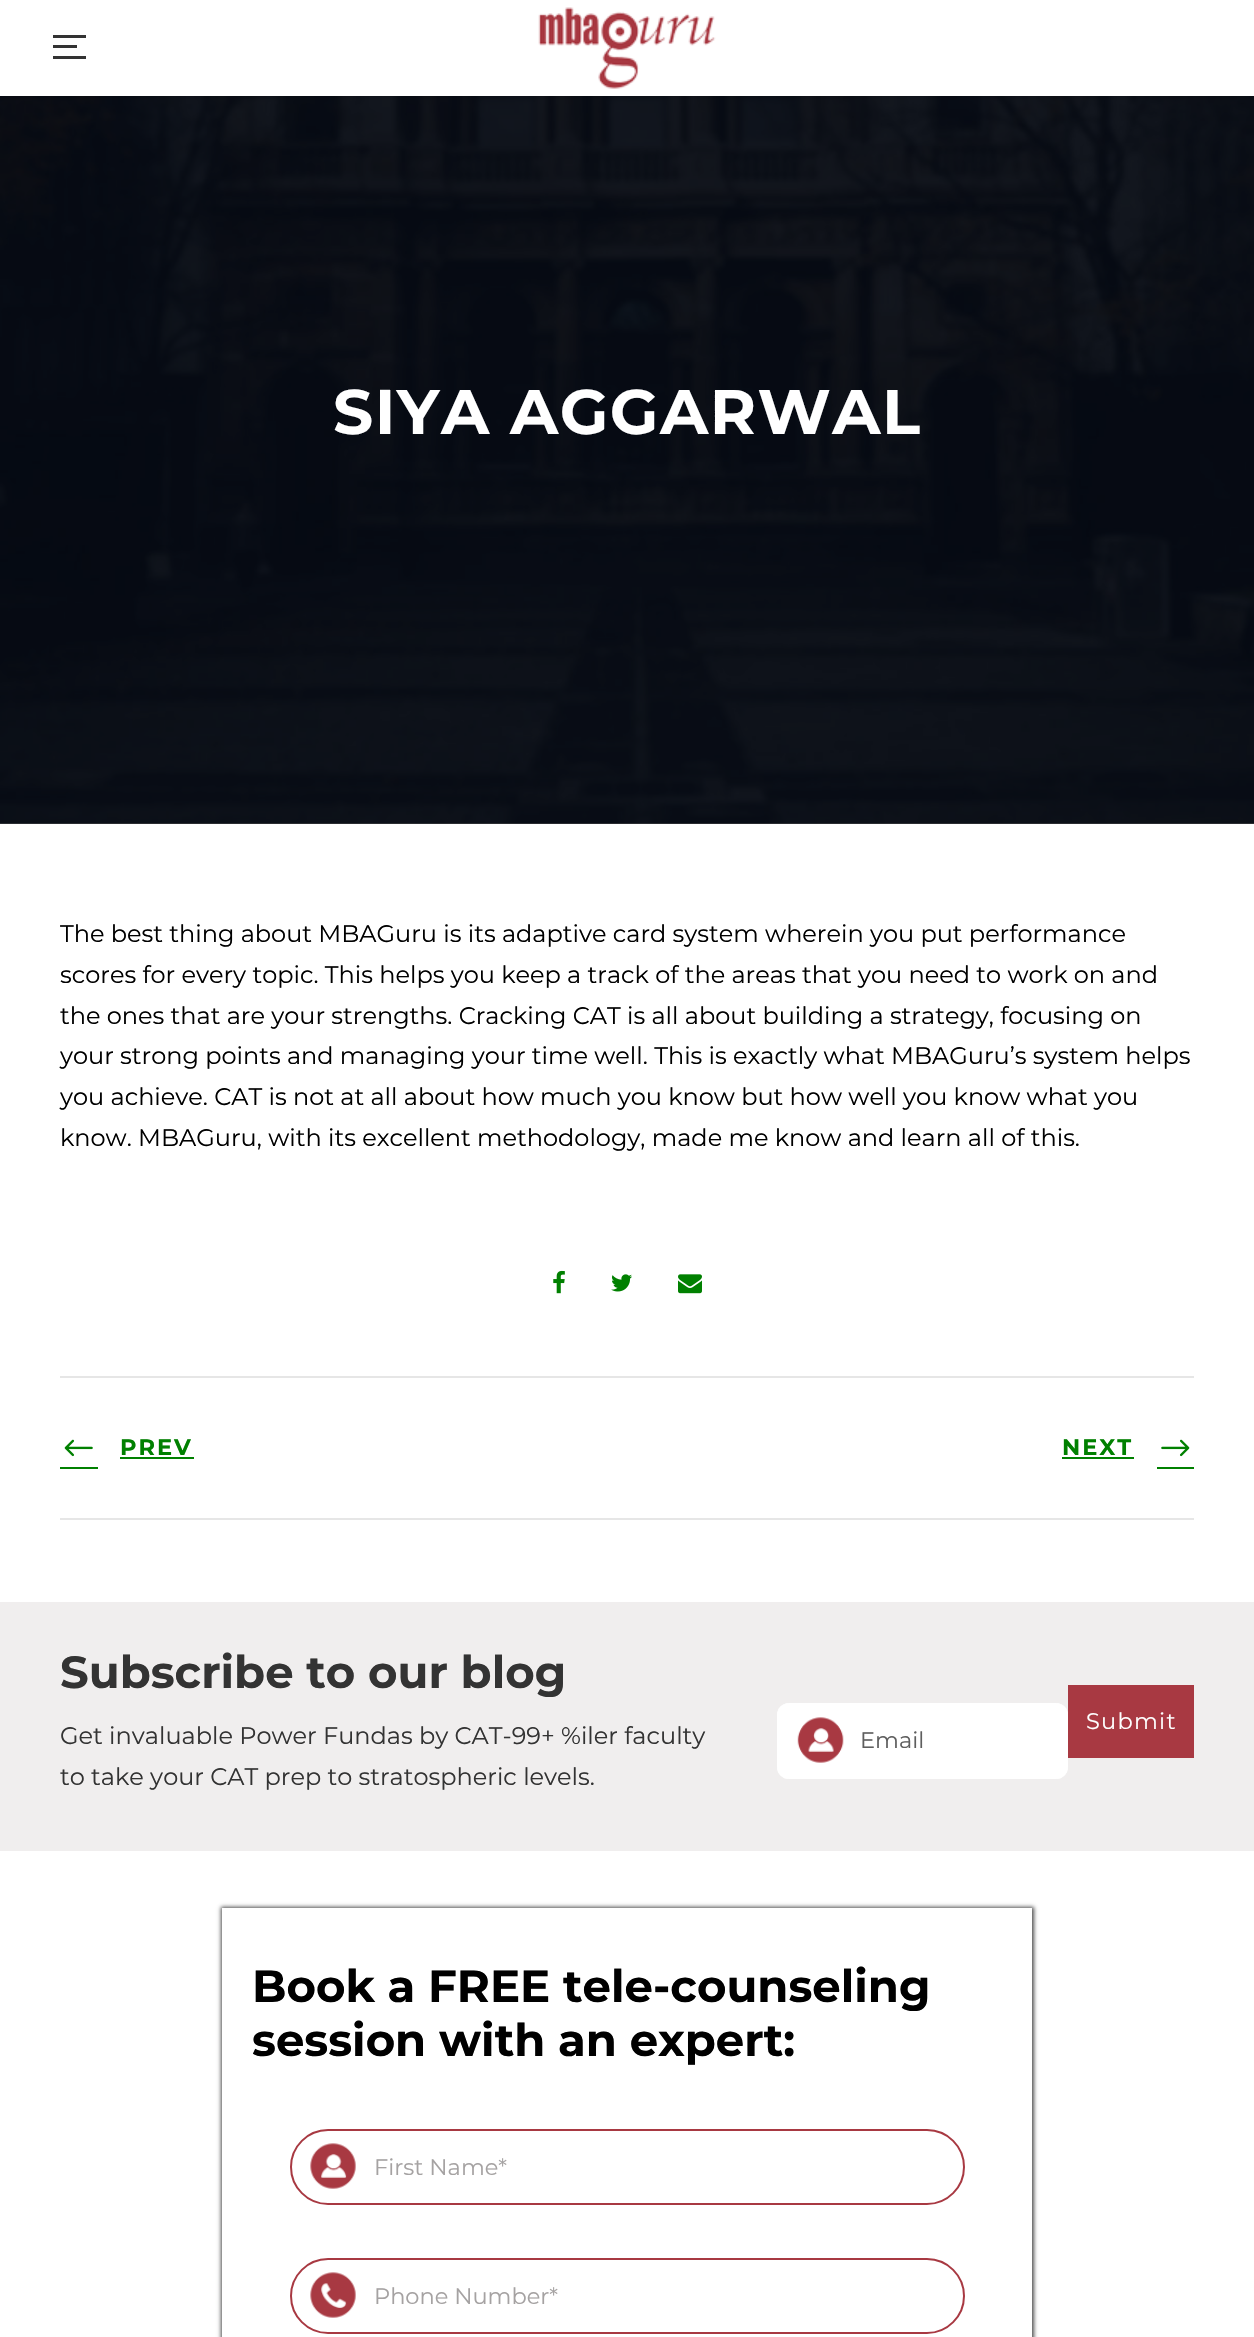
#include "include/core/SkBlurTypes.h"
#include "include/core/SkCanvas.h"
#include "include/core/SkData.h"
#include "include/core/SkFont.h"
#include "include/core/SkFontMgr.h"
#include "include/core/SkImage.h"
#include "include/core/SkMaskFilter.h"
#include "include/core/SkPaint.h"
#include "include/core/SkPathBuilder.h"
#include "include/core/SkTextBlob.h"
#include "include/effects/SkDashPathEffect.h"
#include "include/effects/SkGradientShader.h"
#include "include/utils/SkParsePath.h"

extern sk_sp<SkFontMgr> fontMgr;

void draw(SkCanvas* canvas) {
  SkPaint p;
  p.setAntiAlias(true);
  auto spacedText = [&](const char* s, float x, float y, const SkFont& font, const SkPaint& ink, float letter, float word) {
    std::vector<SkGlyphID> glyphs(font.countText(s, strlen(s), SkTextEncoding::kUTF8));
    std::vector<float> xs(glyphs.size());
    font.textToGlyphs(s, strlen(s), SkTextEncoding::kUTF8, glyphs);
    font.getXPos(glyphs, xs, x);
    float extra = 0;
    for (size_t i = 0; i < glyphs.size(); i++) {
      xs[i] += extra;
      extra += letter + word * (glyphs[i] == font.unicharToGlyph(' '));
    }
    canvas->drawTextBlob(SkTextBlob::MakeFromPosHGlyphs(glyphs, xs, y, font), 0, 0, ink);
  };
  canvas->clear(SK_ColorWHITE);
  p.setColor(SkColorSetRGB(74, 74, 74));
  canvas->drawRect(SkRect::MakeLTRB(0, 823, 1254, 824), p);
  canvas->drawImageRect(SkImages::DeferredFromEncodedData(SkData::MakeFromFileName("images/2.png")), SkRect::MakeLTRB(0, 96, 1254, 824), SkSamplingOptions());
  p.setColor(SkColorSetARGB(26, 0, 0, 0));
  p.setMaskFilter(SkMaskFilter::MakeBlur(kNormal_SkBlurStyle, 1.5f));
  canvas->drawRect(SkRect::MakeLTRB(0, 2, 1254, 98), p);
  p.setMaskFilter(nullptr);
  p.setColor(SK_ColorWHITE);
  canvas->drawRect(SkRect::MakeLTRB(0, 0, 1254, 96), p);
  p.setColor(SkColorSetRGB(51, 51, 51));
  canvas->drawRect(SkRect::MakeLTRB(53, 35, 86, 38), p);
  canvas->drawRect(SkRect::MakeLTRB(53, 45, 77, 48), p);
  canvas->drawRect(SkRect::MakeLTRB(53, 56, 86, 59), p);
  canvas->drawImageRect(SkImages::DeferredFromEncodedData(SkData::MakeFromFileName("images/1.png")), SkRect::MakeLTRB(538, 7, 716, 89), SkSamplingOptions());
  canvas->drawImageRect(SkImages::DeferredFromEncodedData(SkData::MakeFromFileName("images/3.png")), SkRect::MakeLTRB(553, 1270, 565, 1294), SkSamplingOptions());
  canvas->drawImageRect(SkImages::DeferredFromEncodedData(SkData::MakeFromFileName("images/4.png")), SkRect::MakeLTRB(611, 1274, 632, 1292), SkSamplingOptions());
  canvas->drawImageRect(SkImages::DeferredFromEncodedData(SkData::MakeFromFileName("images/5.png")), SkRect::MakeLTRB(678, 1274, 702, 1294), SkSamplingOptions());
  p.setColor(SkColorSetRGB(230, 230, 230));
  canvas->drawRect(SkRect::MakeLTRB(60, 1376, 1194, 1378), p);
  canvas->drawRect(SkRect::MakeLTRB(60, 1518, 1194, 1520), p);
  canvas->drawImageRect(SkImages::DeferredFromEncodedData(SkData::MakeFromFileName("images/6.png")), SkRect::MakeLTRB(64, 1439, 93, 1457), SkSamplingOptions());
  p.setColor(SkColorSetRGB(0, 128, 0));
  canvas->drawRect(SkRect::MakeLTRB(60, 1467, 98, 1469), p);
  canvas->drawRect(SkRect::MakeLTRB(120, 1457, 194, 1459), p);
  canvas->drawRect(SkRect::MakeLTRB(1062, 1457, 1134, 1459), p);
  canvas->drawRect(SkRect::MakeLTRB(1157, 1467, 1194, 1469), p);
  canvas->drawImageRect(SkImages::DeferredFromEncodedData(SkData::MakeFromFileName("images/7.png")), SkRect::MakeLTRB(1161, 1439, 1190, 1457), SkSamplingOptions());
  p.setColor(SkColorSetRGB(240, 238, 238));
  canvas->drawRect(SkRect::MakeLTRB(0, 1602, 1254, 1851), p);
  p.setColor(SkColorSetRGB(168, 57, 66));
  canvas->drawRect(SkRect::MakeLTRB(1068, 1685, 1194, 1758), p);
  p.setColor(SK_ColorWHITE);
  canvas->drawRoundRect(SkRect::MakeLTRB(777, 1703, 1068, 1779), 12, 12, p);
  canvas->drawImageRect(SkImages::DeferredFromEncodedData(SkData::MakeFromFileName("images/8.png")), SkRect::MakeLTRB(797, 1717, 844, 1763), SkSamplingOptions());
  p.setStyle(SkPaint::kStroke_Style);
  p.setStrokeWidth(2);
  canvas->drawRoundRect(SkRect::MakeLTRB(778, 1704, 1067, 1778), 11, 11, p);
  canvas->save();
  canvas->clipPath(SkPathBuilder(SkPathFillType::kEvenOdd).moveTo(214, 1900).lineTo(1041, 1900).lineTo(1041, 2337).lineTo(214, 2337).close().moveTo(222, 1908).lineTo(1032, 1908).lineTo(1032, 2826).lineTo(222, 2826).close().detach(), true);
  p.setStyle(SkPaint::kFill_Style);
  p.setColor(SkColorSetARGB(179, 0, 0, 0));
  p.setMaskFilter(SkMaskFilter::MakeBlur(kNormal_SkBlurStyle, 2));
  canvas->drawRect(SkRect::MakeLTRB(221, 1907, 1034, 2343), p);
  p.setMaskFilter(nullptr);
  canvas->restore();
  canvas->drawImageRect(SkImages::DeferredFromEncodedData(SkData::MakeFromFileName("images/9.png")), SkRect::MakeLTRB(310, 2143, 356, 2189), SkSamplingOptions());
  p.setStyle(SkPaint::kStroke_Style);
  p.setColor(SkColorSetRGB(168, 57, 66));
  canvas->drawRoundRect(SkRect::MakeLTRB(291, 2130, 964, 2204), 37, 37, p);
  canvas->drawImageRect(SkImages::DeferredFromEncodedData(SkData::MakeFromFileName("images/10.png")), SkRect::MakeLTRB(310, 2272, 356, 2318), SkSamplingOptions());
  canvas->drawRoundRect(SkRect::MakeLTRB(291, 2259, 964, 2333), 37, 37, p);
  SkFont font1(fontMgr->matchFamilyStyle("Montserrat", SkFontStyle::Bold()), 63);
  font1.setSubpixel(true);
  p.setStyle(SkPaint::kFill_Style);
  p.setColor(SK_ColorWHITE);
  spacedText("SIYA AGGARWAL", 333, 434, font1, p, 1.5f, 0);
  SkFont font2(fontMgr->matchFamilyStyle("Montserrat", SkFontStyle(100, SkFontStyle::kNormal_Width, SkFontStyle::kUpright_Slant)), 24);
  font2.setSubpixel(true);
  p.setColor(SK_ColorBLACK);
  canvas->drawString("The best thing about MBAGuru is its adaptive card system wherein you put performance", 60, 942, font2, p);
  canvas->drawString("scores for every topic. This helps you keep a track of the areas that you need to work on and", 60, 983, font2, p);
  canvas->drawString("the ones that are your strengths. Cracking CAT is all about building a strategy, focusing on", 60, 1024, font2, p);
  canvas->drawString("your strong points and managing your time well. This is exactly what MBAGuru’s system helps", 60, 1064, font2, p);
  canvas->drawString("you achieve. CAT is not at all about how much you know but how well you know what you", 60, 1105, font2, p);
  canvas->drawString("know. MBAGuru, with its excellent methodology, made me know and learn all of this.", 60, 1146, font2, p);
  SkFont font3(fontMgr->matchFamilyStyle("Montserrat", SkFontStyle::Bold()), 22.5f);
  font3.setSubpixel(true);
  p.setColor(SkColorSetRGB(0, 128, 0));
  spacedText("PREV", 120, 1455, font3, p, 2, 0);
  spacedText("NEXT", 1062, 1455, font3, p, 2, 0);
  SkFont font4(fontMgr->matchFamilyStyle("Montserrat", SkFontStyle::Bold()), 45);
  font4.setSubpixel(true);
  p.setColor(SkColorSetRGB(51, 51, 51));
  canvas->drawString("Subscribe to our blog", 60, 1688, font4, p);
  canvas->drawString("Get invaluable Power Fundas by CAT-99+ %iler faculty", 60, 1744, font2, p);
  canvas->drawString("to take your CAT prep to stratospheric levels.", 60, 1785, font2, p);
  SkFont font5(fontMgr->matchFamilyStyle("Montserrat", SkFontStyle(100, SkFontStyle::kNormal_Width, SkFontStyle::kUpright_Slant)), 22.5f);
  font5.setSubpixel(true);
  p.setColor(SK_ColorWHITE);
  spacedText("Submit", 1086, 1729, font5, p, 1.25f, 0);
  p.setColor(SkColorSetRGB(94, 94, 94));
  canvas->drawString("Email", 860, 1748, font5, p);
  p.setColor(SK_ColorBLACK);
  canvas->drawString("Book a FREE tele-counseling", 252, 2002, font4, p);
  canvas->drawString("session with an expert:", 252, 2056, font4, p);
  p.setColor(SkColorSetRGB(165, 162, 162));
  canvas->drawString("First Name*", 374, 2175, font5, p);
  canvas->drawString("Phone Number*", 374, 2304, font5, p);
}
